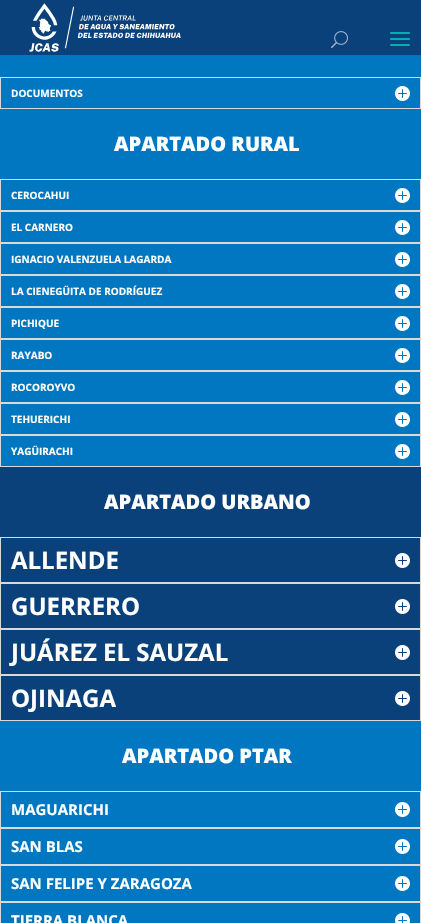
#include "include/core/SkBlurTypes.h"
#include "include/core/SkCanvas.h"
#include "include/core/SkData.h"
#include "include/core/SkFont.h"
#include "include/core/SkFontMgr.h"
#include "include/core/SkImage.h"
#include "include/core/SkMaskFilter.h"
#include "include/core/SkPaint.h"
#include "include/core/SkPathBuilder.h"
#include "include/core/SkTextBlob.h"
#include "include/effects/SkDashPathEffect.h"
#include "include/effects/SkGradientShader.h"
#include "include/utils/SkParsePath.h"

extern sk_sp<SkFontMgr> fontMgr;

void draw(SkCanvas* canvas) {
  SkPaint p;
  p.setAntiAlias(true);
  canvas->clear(SkColorSetRGB(0, 119, 192));
  p.setColor(SkColorSetRGB(11, 65, 123));
  canvas->drawRect(SkRect::MakeLTRB(0, 0, 421, 55), p);
  canvas->drawImageRect(SkImages::DeferredFromEncodedData(SkData::MakeFromFileName("images/1.png")), SkRect::MakeLTRB(29, 3, 181, 52), SkSamplingOptions());
  canvas->drawImageRect(SkImages::DeferredFromEncodedData(SkData::MakeFromFileName("images/2.png")), SkRect::MakeLTRB(331, 31, 348, 49), SkSamplingOptions());
  canvas->drawImageRect(SkImages::DeferredFromEncodedData(SkData::MakeFromFileName("images/3.png")), SkRect::MakeLTRB(390, 32, 410, 46), SkSamplingOptions());
  p.setStyle(SkPaint::kStroke_Style);
  p.setStrokeWidth(1);
  p.setColor(SkColorSetRGB(217, 217, 217));
  canvas->drawRect(SkRect::MakeLTRB(0.5f, 77.5f, 420.5f, 108.5f), p);
  canvas->drawImageRect(SkImages::DeferredFromEncodedData(SkData::MakeFromFileName("images/4.png")), SkRect::MakeLTRB(395, 86, 410, 101), SkSamplingOptions());
  canvas->drawRect(SkRect::MakeLTRB(0.5f, 179.5f, 420.5f, 210.5f), p);
  canvas->drawImageRect(SkImages::DeferredFromEncodedData(SkData::MakeFromFileName("images/4.png")), SkRect::MakeLTRB(395, 188, 410, 203), SkSamplingOptions());
  canvas->drawRect(SkRect::MakeLTRB(0.5f, 211.5f, 420.5f, 242.5f), p);
  canvas->drawImageRect(SkImages::DeferredFromEncodedData(SkData::MakeFromFileName("images/4.png")), SkRect::MakeLTRB(395, 220, 410, 235), SkSamplingOptions());
  canvas->drawRect(SkRect::MakeLTRB(0.5f, 243.5f, 420.5f, 274.5f), p);
  canvas->drawImageRect(SkImages::DeferredFromEncodedData(SkData::MakeFromFileName("images/4.png")), SkRect::MakeLTRB(395, 252, 410, 267), SkSamplingOptions());
  canvas->drawRect(SkRect::MakeLTRB(0.5f, 275.5f, 420.5f, 306.5f), p);
  canvas->drawImageRect(SkImages::DeferredFromEncodedData(SkData::MakeFromFileName("images/4.png")), SkRect::MakeLTRB(395, 284, 410, 299), SkSamplingOptions());
  canvas->drawRect(SkRect::MakeLTRB(0.5f, 307.5f, 420.5f, 338.5f), p);
  canvas->drawImageRect(SkImages::DeferredFromEncodedData(SkData::MakeFromFileName("images/4.png")), SkRect::MakeLTRB(395, 316, 410, 331), SkSamplingOptions());
  canvas->drawRect(SkRect::MakeLTRB(0.5f, 339.5f, 420.5f, 370.5f), p);
  canvas->drawImageRect(SkImages::DeferredFromEncodedData(SkData::MakeFromFileName("images/4.png")), SkRect::MakeLTRB(395, 348, 410, 363), SkSamplingOptions());
  canvas->drawRect(SkRect::MakeLTRB(0.5f, 371.5f, 420.5f, 402.5f), p);
  canvas->drawImageRect(SkImages::DeferredFromEncodedData(SkData::MakeFromFileName("images/4.png")), SkRect::MakeLTRB(395, 380, 410, 395), SkSamplingOptions());
  canvas->drawRect(SkRect::MakeLTRB(0.5f, 403.5f, 420.5f, 434.5f), p);
  canvas->drawImageRect(SkImages::DeferredFromEncodedData(SkData::MakeFromFileName("images/4.png")), SkRect::MakeLTRB(395, 412, 410, 427), SkSamplingOptions());
  canvas->drawRect(SkRect::MakeLTRB(0.5f, 435.5f, 420.5f, 466.5f), p);
  canvas->drawImageRect(SkImages::DeferredFromEncodedData(SkData::MakeFromFileName("images/4.png")), SkRect::MakeLTRB(395, 444, 410, 459), SkSamplingOptions());
  p.setStyle(SkPaint::kFill_Style);
  p.setColor(SkColorSetRGB(11, 65, 123));
  canvas->drawRect(SkRect::MakeLTRB(0, 467, 421, 720), p);
  p.setStyle(SkPaint::kStroke_Style);
  p.setColor(SkColorSetRGB(217, 217, 217));
  canvas->drawRect(SkRect::MakeLTRB(0.5f, 537.5f, 420.5f, 582.5f), p);
  canvas->drawImageRect(SkImages::DeferredFromEncodedData(SkData::MakeFromFileName("images/5.png")), SkRect::MakeLTRB(395, 553, 410, 568), SkSamplingOptions());
  canvas->drawRect(SkRect::MakeLTRB(0.5f, 583.5f, 420.5f, 628.5f), p);
  canvas->drawImageRect(SkImages::DeferredFromEncodedData(SkData::MakeFromFileName("images/5.png")), SkRect::MakeLTRB(395, 599, 410, 614), SkSamplingOptions());
  canvas->drawRect(SkRect::MakeLTRB(0.5f, 629.5f, 420.5f, 674.5f), p);
  canvas->drawImageRect(SkImages::DeferredFromEncodedData(SkData::MakeFromFileName("images/5.png")), SkRect::MakeLTRB(395, 645, 410, 660), SkSamplingOptions());
  canvas->drawRect(SkRect::MakeLTRB(0.5f, 675.5f, 420.5f, 720.5f), p);
  canvas->drawImageRect(SkImages::DeferredFromEncodedData(SkData::MakeFromFileName("images/5.png")), SkRect::MakeLTRB(395, 691, 410, 706), SkSamplingOptions());
  canvas->drawRect(SkRect::MakeLTRB(0.5f, 791.5f, 420.5f, 827.5f), p);
  canvas->drawImageRect(SkImages::DeferredFromEncodedData(SkData::MakeFromFileName("images/4.png")), SkRect::MakeLTRB(395, 802, 410, 817), SkSamplingOptions());
  canvas->drawRect(SkRect::MakeLTRB(0.5f, 828.5f, 420.5f, 864.5f), p);
  canvas->drawImageRect(SkImages::DeferredFromEncodedData(SkData::MakeFromFileName("images/4.png")), SkRect::MakeLTRB(395, 839, 410, 854), SkSamplingOptions());
  canvas->drawRect(SkRect::MakeLTRB(0.5f, 865.5f, 420.5f, 901.5f), p);
  canvas->drawImageRect(SkImages::DeferredFromEncodedData(SkData::MakeFromFileName("images/4.png")), SkRect::MakeLTRB(395, 876, 410, 891), SkSamplingOptions());
  canvas->drawRect(SkRect::MakeLTRB(0.5f, 902.5f, 420.5f, 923.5f), p);
  canvas->drawImageRect(SkImages::DeferredFromEncodedData(SkData::MakeFromFileName("images/6.png")), SkRect::MakeLTRB(395, 913, 410, 923), SkSamplingOptions());
  SkFont font1(fontMgr->matchFamilyStyle("Open Sans", SkFontStyle::Bold()), 10);
  font1.setSubpixel(true);
  p.setStyle(SkPaint::kFill_Style);
  p.setColor(SK_ColorWHITE);
  canvas->drawString("DOCUMENTOS", 11, 97, font1, p);
  SkFont font2(fontMgr->matchFamilyStyle("Open Sans", SkFontStyle(800, SkFontStyle::kNormal_Width, SkFontStyle::kUpright_Slant)), 20);
  font2.setSubpixel(true);
  canvas->drawString("APARTADO RURAL", 114, 151, font2, p);
  canvas->drawString("CEROCAHUI", 11, 199, font1, p);
  canvas->drawString("EL CARNERO", 11, 231, font1, p);
  canvas->drawString("IGNACIO VALENZUELA LAGARDA", 11, 263, font1, p);
  canvas->drawString("LA CIENEGÜITA DE RODRÍGUEZ", 11, 295, font1, p);
  canvas->drawString("PICHIQUE", 11, 327, font1, p);
  canvas->drawString("RAYABO", 11, 359, font1, p);
  canvas->drawString("ROCOROYVO", 11, 391, font1, p);
  canvas->drawString("TEHUERICHI", 11, 423, font1, p);
  canvas->drawString("YAGÜIRACHI", 11, 455, font1, p);
  canvas->drawString("APARTADO URBANO", 104, 509, font2, p);
  SkFont font3(fontMgr->matchFamilyStyle("Open Sans", SkFontStyle::Bold()), 24);
  font3.setSubpixel(true);
  canvas->drawString("ALLENDE", 11, 569, font3, p);
  canvas->drawString("GUERRERO", 11, 615, font3, p);
  canvas->drawString("JUÁREZ EL SAUZAL", 11, 661, font3, p);
  canvas->drawString("OJINAGA", 11, 707, font3, p);
  canvas->drawString("APARTADO PTAR", 122, 763, font2, p);
  SkFont font4(fontMgr->matchFamilyStyle("Open Sans", SkFontStyle::Bold()), 15);
  font4.setSubpixel(true);
  canvas->drawString("MAGUARICHI", 11, 815, font4, p);
  canvas->drawString("SAN BLAS", 11, 852, font4, p);
  canvas->drawString("SAN FELIPE Y ZARAGOZA", 11, 889, font4, p);
  canvas->drawString("TIERRA BLANCA", 11, 926, font4, p);
}
